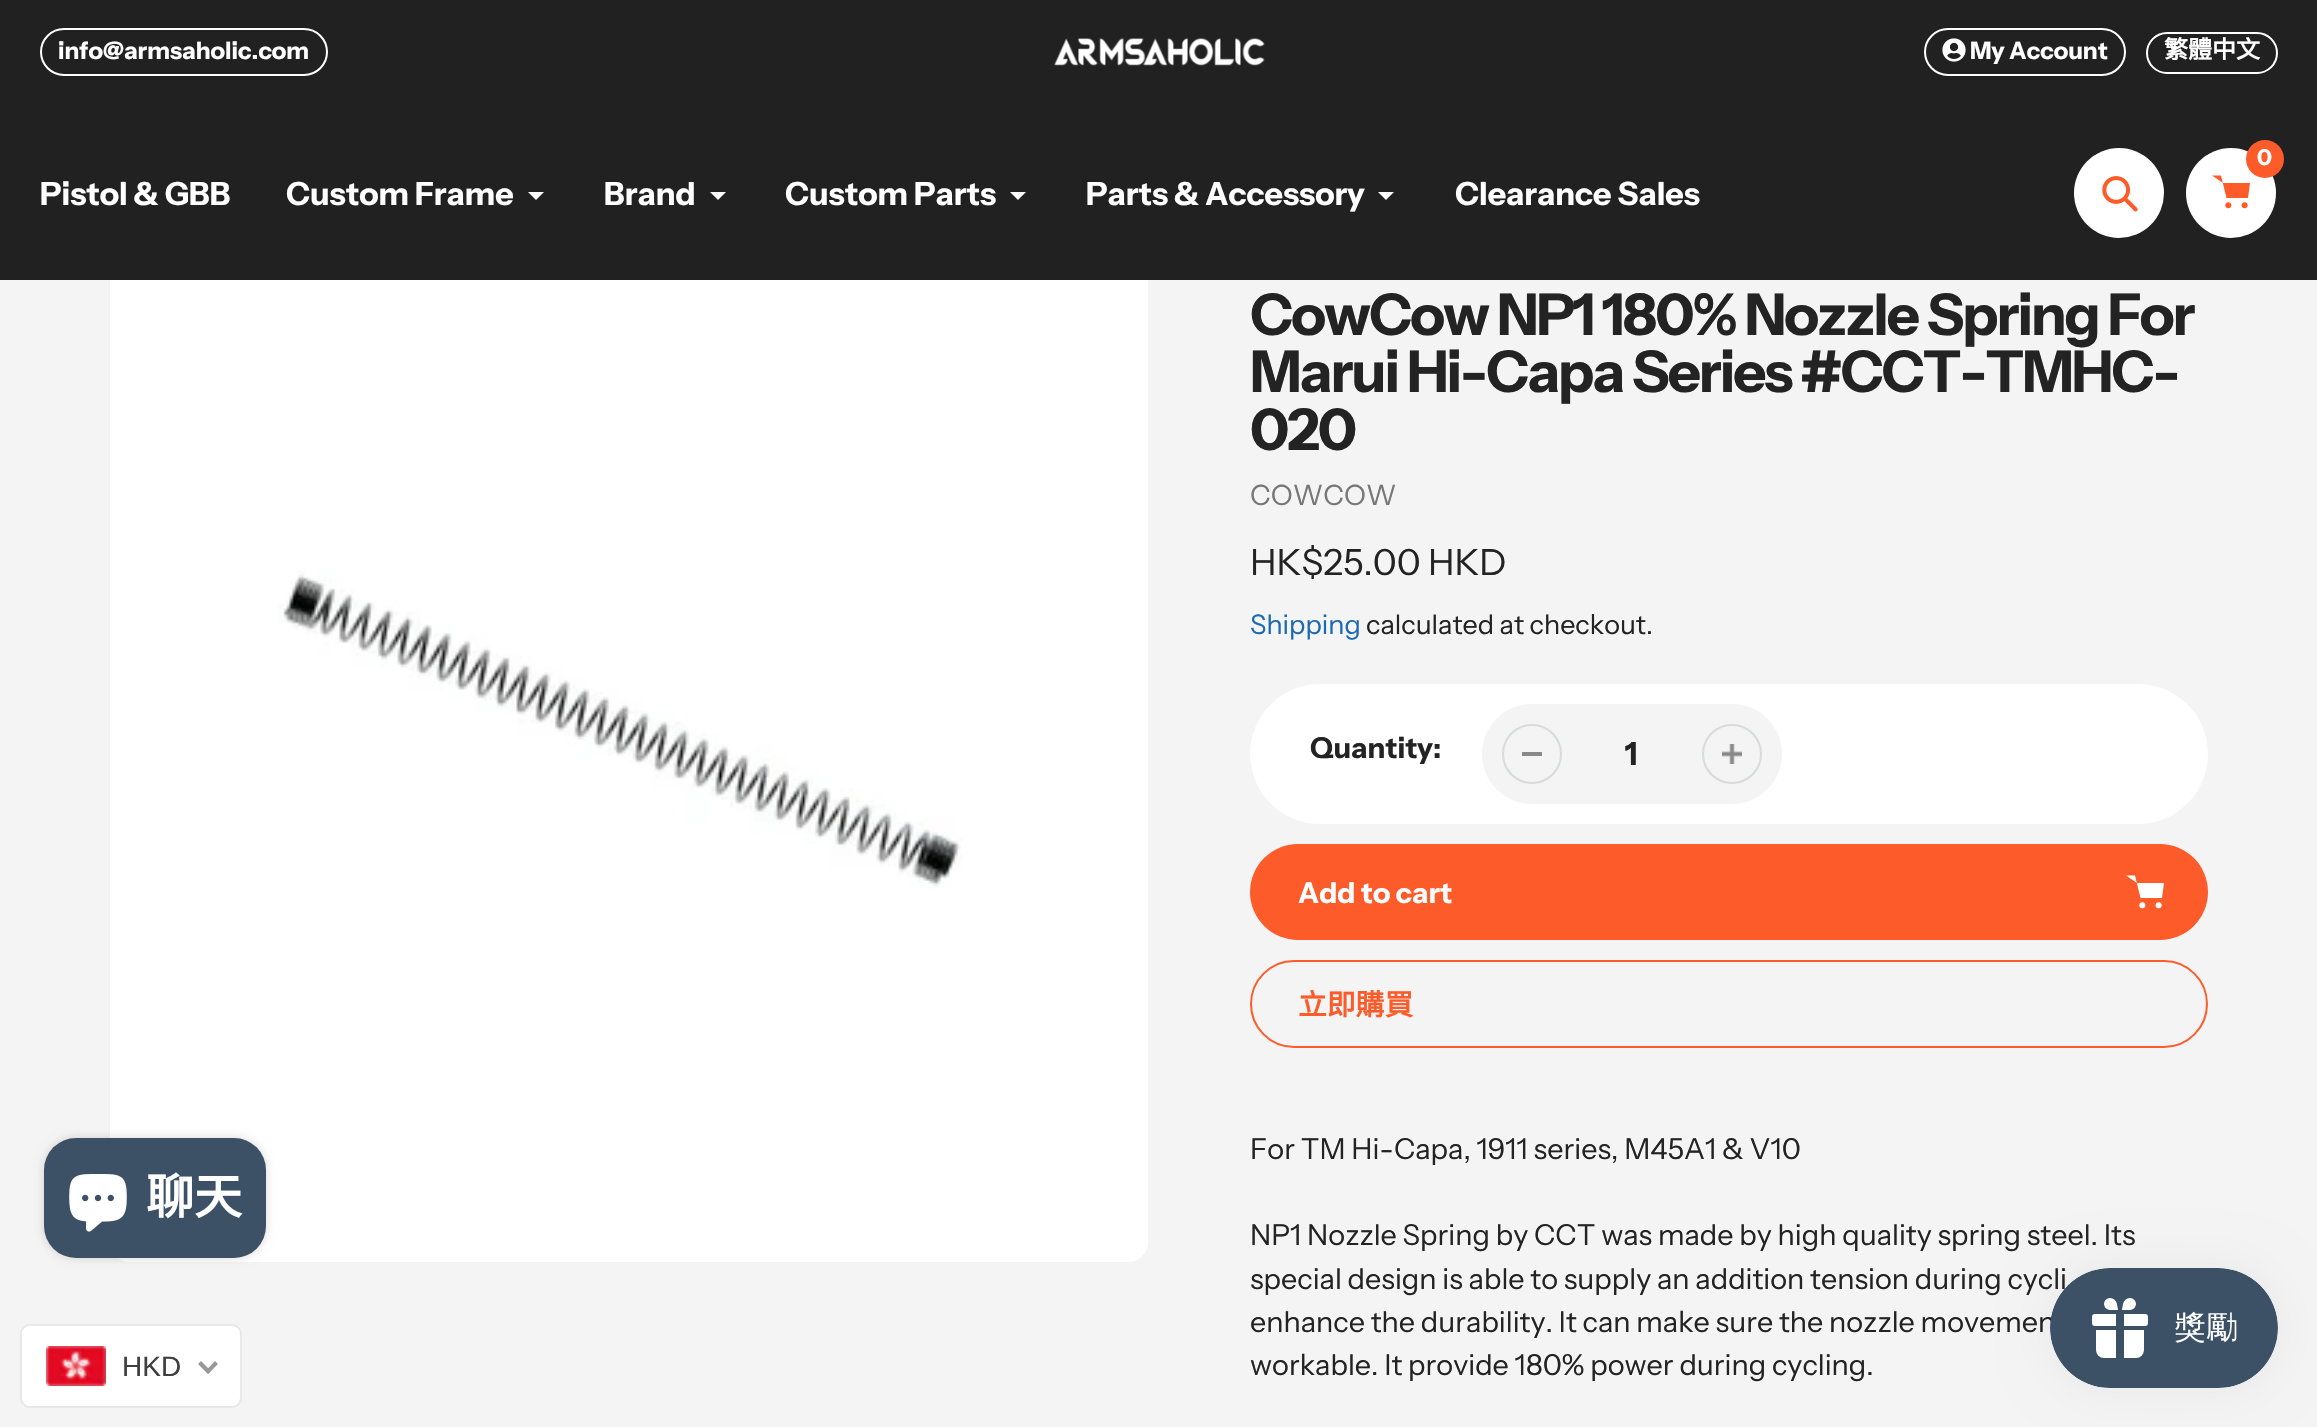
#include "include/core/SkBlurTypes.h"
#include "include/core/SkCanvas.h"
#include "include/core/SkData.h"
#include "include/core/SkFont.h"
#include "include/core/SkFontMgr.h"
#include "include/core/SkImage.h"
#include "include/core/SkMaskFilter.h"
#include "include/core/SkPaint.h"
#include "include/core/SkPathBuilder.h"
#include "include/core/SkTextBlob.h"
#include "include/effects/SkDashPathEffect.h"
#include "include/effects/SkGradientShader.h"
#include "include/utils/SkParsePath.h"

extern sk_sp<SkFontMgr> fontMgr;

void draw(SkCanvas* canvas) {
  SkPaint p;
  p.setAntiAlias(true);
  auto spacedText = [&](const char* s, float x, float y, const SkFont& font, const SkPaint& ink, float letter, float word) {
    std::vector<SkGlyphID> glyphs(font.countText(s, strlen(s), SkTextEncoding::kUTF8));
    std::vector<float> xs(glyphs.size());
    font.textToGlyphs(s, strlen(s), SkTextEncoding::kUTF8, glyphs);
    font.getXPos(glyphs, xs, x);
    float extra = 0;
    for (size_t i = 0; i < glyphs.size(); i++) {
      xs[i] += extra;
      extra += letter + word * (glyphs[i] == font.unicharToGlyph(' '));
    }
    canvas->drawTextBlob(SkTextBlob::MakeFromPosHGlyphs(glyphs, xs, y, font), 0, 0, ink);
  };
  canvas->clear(SkColorSetRGB(244, 244, 244));
  p.setColor(SkColorSetRGB(33, 33, 33));
  canvas->drawRect(SkRect::MakeLTRB(0, 0, 2317, 280), p);
  p.setStyle(SkPaint::kStroke_Style);
  p.setStrokeWidth(2);
  p.setColor(SK_ColorWHITE);
  canvas->drawRoundRect(SkRect::MakeLTRB(41, 29, 327, 75), 23, 23, p);
  canvas->drawImageRect(SkImages::DeferredFromEncodedData(SkData::MakeFromFileName("images/1.png")), SkRect::MakeLTRB(1054, 38, 1265, 66), SkSamplingOptions());
  canvas->drawRoundRect(SkRect::MakeLTRB(1925, 29, 2125, 75), 23, 23, p);
  canvas->drawImageRect(SkImages::DeferredFromEncodedData(SkData::MakeFromFileName("images/2.png")), SkRect::MakeLTRB(1942, 38, 1966, 62), SkSamplingOptions());
  canvas->drawRoundRect(SkRect::MakeLTRB(2147, 33, 2277, 73), 20, 20, p);
  p.setStyle(SkPaint::kFill_Style);
  canvas->drawCircle(2119, 193, 45, p);
  canvas->drawImageRect(SkImages::DeferredFromEncodedData(SkData::MakeFromFileName("images/3.png")), SkRect::MakeLTRB(2102, 176, 2138, 212), SkSamplingOptions());
  canvas->drawCircle(2231, 193, 45, p);
  p.setColor(SkColorSetRGB(253, 91, 42));
  canvas->drawPath(SkPathBuilder(SkPathFillType::kEvenOdd).moveTo(2223, 183).lineTo(2250, 183).lineTo(2248, 198).lineTo(2226.5f, 198).lineTo(2221, 175.5f).lineTo(2212, 175.5f).detach(), p);
  canvas->drawCircle(2265, 159, 19, p);
  canvas->drawCircle(2228.3f, 205.3f, 3, p);
  canvas->drawCircle(2244.6f, 205.3f, 3, p);
  p.setColor(SK_ColorWHITE);
  canvas->drawPath(SkPathBuilder().moveTo(544, 192).lineTo(536, 200).lineTo(528, 192).detach(), p);
  canvas->drawPath(SkPathBuilder().moveTo(726, 192).lineTo(718, 200).lineTo(710, 192).detach(), p);
  canvas->drawPath(SkPathBuilder().moveTo(1026, 192).lineTo(1018, 200).lineTo(1010, 192).detach(), p);
  canvas->drawPath(SkPathBuilder().moveTo(1394, 192).lineTo(1386, 200).lineTo(1378, 192).detach(), p);
  canvas->drawImageRect(SkImages::DeferredFromEncodedData(SkData::MakeFromFileName("images/5.png")), SkRect::MakeLTRB(110, 280, 1148, 1262), SkSamplingOptions());
  p.setColor(SkColorSetARGB(38, 0, 0, 0));
  p.setMaskFilter(SkMaskFilter::MakeBlur(kNormal_SkBlurStyle, 5));
  canvas->drawRoundRect(SkRect::MakeLTRB(44, 1138, 266, 1258), 32, 32, p);
  p.setMaskFilter(nullptr);
  p.setColor(SkColorSetRGB(61, 81, 102));
  canvas->drawRoundRect(SkRect::MakeLTRB(44, 1138, 266, 1258), 32, 32, p);
  canvas->drawImageRect(SkImages::DeferredFromEncodedData(SkData::MakeFromFileName("images/4.png")), SkRect::MakeLTRB(69, 1174, 127, 1232), SkSamplingOptions());
  p.setColor(SK_ColorWHITE);
  canvas->drawRoundRect(SkRect::MakeLTRB(1250, 684, 2208, 824), 70, 70, p);
  p.setColor(SkColorSetRGB(244, 244, 244));
  canvas->drawRoundRect(SkRect::MakeLTRB(1482, 704, 1782, 804), 50, 50, p);
  p.setColor(SkColorSetRGB(137, 137, 137));
  canvas->drawRect(SkRect::MakeLTRB(1522, 752, 1542, 756), p);
  p.setStyle(SkPaint::kStroke_Style);
  p.setColor(SkColorSetRGB(215, 219, 219));
  canvas->drawCircle(1532, 754, 29, p);
  canvas->drawImageRect(SkImages::DeferredFromEncodedData(SkData::MakeFromFileName("images/6.png")), SkRect::MakeLTRB(1722, 744, 1742, 764), SkSamplingOptions());
  canvas->drawCircle(1732, 754, 29, p);
  p.setStyle(SkPaint::kFill_Style);
  p.setColor(SkColorSetRGB(253, 91, 42));
  canvas->drawRoundRect(SkRect::MakeLTRB(1250, 844, 2208, 940), 48, 48, p);
  p.setColor(SK_ColorWHITE);
  canvas->drawCircle(2142.3f, 905.3f, 3, p);
  canvas->drawCircle(2158.6f, 905.3f, 3, p);
  canvas->drawPath(SkPathBuilder(SkPathFillType::kEvenOdd).moveTo(2137, 883).lineTo(2164, 883).lineTo(2162, 898).lineTo(2140.5f, 898).lineTo(2135, 875.5f).lineTo(2126, 875.5f).detach(), p);
  p.setStyle(SkPaint::kStroke_Style);
  p.setColor(SkColorSetRGB(253, 91, 42));
  canvas->drawRoundRect(SkRect::MakeLTRB(1251, 961, 2207, 1047), 43, 43, p);
  p.setStyle(SkPaint::kFill_Style);
  p.setColor(SK_ColorWHITE);
  canvas->drawRoundRect(SkRect::MakeLTRB(21, 1325, 241, 1407), 9, 9, p);
  p.setStyle(SkPaint::kStroke_Style);
  p.setColor(SkColorSetRGB(232, 232, 232));
  canvas->drawRoundRect(SkRect::MakeLTRB(21, 1325, 241, 1407), 9, 9, p);
  canvas->drawImageRect(SkImages::DeferredFromEncodedData(SkData::MakeFromFileName("images/7.png")), SkRect::MakeLTRB(46, 1346, 106, 1386), SkSamplingOptions());
  p.setStyle(SkPaint::kFill_Style);
  p.setColor(SkColorSetRGB(153, 153, 153));
  canvas->drawPath(SkPathBuilder().moveTo(215, 1361).lineTo(218, 1364).lineTo(208, 1374).lineTo(205.5f, 1371).close().detach(), p);
  canvas->drawPath(SkPathBuilder().moveTo(201, 1361).lineTo(211, 1371).lineTo(208, 1374).lineTo(198, 1364).close().detach(), p);
  p.setColor(SkColorSetARGB(13, 0, 0, 0));
  p.setMaskFilter(SkMaskFilter::MakeBlur(kNormal_SkBlurStyle, 25));
  canvas->drawRoundRect(SkRect::MakeLTRB(2050, 1268, 2278, 1388), 60, 60, p);
  p.setMaskFilter(nullptr);
  SkFont font1(fontMgr->matchFamilyStyle("Instrument Sans", SkFontStyle::Bold()), 24);
  font1.setSubpixel(true);
  p.setColor(SK_ColorWHITE);
  canvas->drawString("info@armsaholic.com", 58, 59, font1, p);
  canvas->drawString("My Account", 1970, 59, font1, p);
  SkFont font2(fontMgr->matchFamilyStyle("Noto Sans CJK TC", SkFontStyle::Bold()), 24);
  font2.setSubpixel(true);
  canvas->drawString("繁體中文", 2164, 58, font2, p);
  SkFont font3(fontMgr->matchFamilyStyle("Instrument Sans", SkFontStyle::Bold()), 22);
  font3.setSubpixel(true);
  canvas->drawString("0", 2257, 165, font3, p);
  SkFont font4(fontMgr->matchFamilyStyle("Instrument Sans", SkFontStyle::Bold()), 32);
  font4.setSubpixel(true);
  canvas->drawString("Pistol & GBB", 40, 205, font4, p);
  canvas->drawString("Custom Frame", 286, 205, font4, p);
  canvas->drawString("Brand", 604, 205, font4, p);
  canvas->drawString("Custom Parts", 785, 205, font4, p);
  canvas->drawString("Parts & Accessory", 1086, 205, font4, p);
  canvas->drawString("Clearance Sales", 1455, 205, font4, p);
  SkFont font5(fontMgr->matchFamilyStyle("Noto Sans CJK TC", SkFontStyle::Bold()), 48);
  font5.setSubpixel(true);
  canvas->drawString("聊天", 146, 1214, font5, p);
  SkFont font6(fontMgr->matchFamilyStyle("Instrument Sans", SkFontStyle::Bold()), 57.6f);
  font6.setSubpixel(true);
  p.setColor(SkColorSetRGB(35, 35, 35));
  spacedText("CowCow NP1 180% Nozzle Spring For", 1250, 335, font6, p, -2, 0);
  spacedText("Marui Hi-Capa Series #CCT-TMHC-", 1250, 392, font6, p, -2, 0);
  spacedText("020", 1250, 450, font6, p, -2, 0);
  SkFont font7(fontMgr->matchFamilyStyle("Instrument Sans", SkFontStyle::Normal()), 28);
  font7.setSubpixel(true);
  p.setColor(SkColorSetRGB(119, 119, 119));
  canvas->drawString("COWCOW", 1250, 505, font7, p);
  SkFont font8(fontMgr->matchFamilyStyle("Instrument Sans", SkFontStyle::Normal()), 36);
  font8.setSubpixel(true);
  p.setColor(SkColorSetRGB(35, 35, 35));
  canvas->drawString("HK$25.00 HKD", 1250, 575, font8, p);
  SkFont font9(fontMgr->matchFamilyStyle("Instrument Sans", SkFontStyle::Normal()), 27);
  font9.setSubpixel(true);
  p.setColor(SkColorSetRGB(29, 106, 180));
  canvas->drawString("Shipping", 1250, 634, font9, p);
  p.setColor(SkColorSetRGB(35, 35, 35));
  canvas->drawString("calculated at checkout.", 1366, 634, font9, p);
  SkFont font10(fontMgr->matchFamilyStyle("Instrument Sans", SkFontStyle::Bold()), 28.8f);
  font10.setSubpixel(true);
  canvas->drawString("Quantity:", 1310, 758, font10, p);
  canvas->drawString("1", 1625, 765, font4, p);
  p.setColor(SK_ColorWHITE);
  canvas->drawString("Add to cart", 1298, 903, font10, p);
  SkFont font11(fontMgr->matchFamilyStyle("Noto Sans CJK TC", SkFontStyle::Bold()), 28.8f);
  font11.setSubpixel(true);
  p.setColor(SkColorSetRGB(253, 91, 42));
  canvas->drawString("立即購買", 1298, 1015, font11, p);
  SkFont font12(fontMgr->matchFamilyStyle("Instrument Sans", SkFontStyle::Normal()), 28.8f);
  font12.setSubpixel(true);
  p.setColor(SkColorSetRGB(35, 35, 35));
  canvas->drawString("For TM Hi-Capa, 1911 series, M45A1 & V10", 1250, 1159, font12, p);
  canvas->drawString("NP1 Nozzle Spring by CCT was made by high quality spring steel. Its", 1250, 1245, font12, p);
  canvas->drawString("special design is able to supply an addition tension during cycli", 1250, 1289, font12, p);
  canvas->drawString("enhance the durability. It can make sure the nozzle movemen", 1250, 1332, font12, p);
  canvas->drawString("workable. It provide 180% power during cycling.", 1250, 1375, font12, p);
  SkFont font13(fontMgr->matchFamilyStyle("Liberation Sans", SkFontStyle::Normal()), 28);
  font13.setSubpixel(true);
  p.setColor(SkColorSetRGB(64, 63, 63));
  canvas->drawString("HKD", 122, 1376, font13, p);
  canvas->drawImageRect(SkImages::DeferredFromEncodedData(SkData::MakeFromFileName("images/8.png")), SkRect::MakeLTRB(2050, 1268, 2278, 1388), SkSamplingOptions());
}
